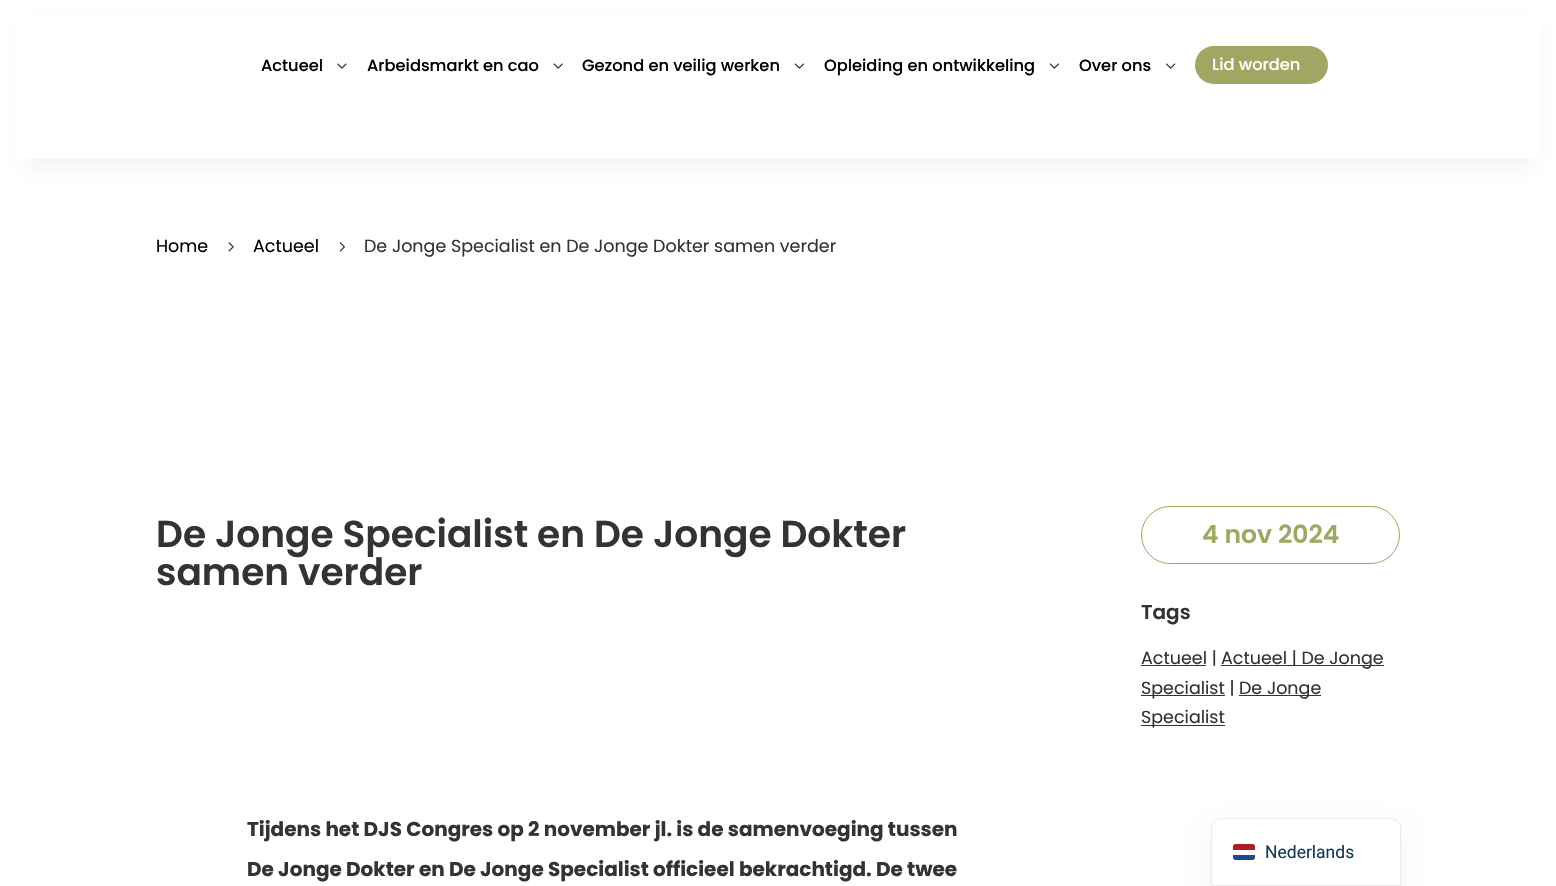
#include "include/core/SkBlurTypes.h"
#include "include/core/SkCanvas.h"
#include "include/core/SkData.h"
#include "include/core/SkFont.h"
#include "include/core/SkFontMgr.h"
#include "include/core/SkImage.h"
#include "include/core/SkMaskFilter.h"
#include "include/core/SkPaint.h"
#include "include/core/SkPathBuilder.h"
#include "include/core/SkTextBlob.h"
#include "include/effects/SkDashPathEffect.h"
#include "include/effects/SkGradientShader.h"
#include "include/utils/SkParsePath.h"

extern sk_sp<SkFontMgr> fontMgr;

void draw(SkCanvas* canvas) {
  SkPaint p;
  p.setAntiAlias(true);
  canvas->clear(SK_ColorWHITE);
  p.setColor(SkColorSetARGB(20, 81, 81, 81));
  p.setMaskFilter(SkMaskFilter::MakeBlur(kNormal_SkBlurStyle, 11));
  canvas->drawRect(SkRect::MakeLTRB(23, 23, 1534, 166), p);
  p.setMaskFilter(nullptr);
  p.setColor(SK_ColorWHITE);
  canvas->drawRect(SkRect::MakeLTRB(15, 13, 1541, 159), p);
  canvas->drawImageRect(SkImages::DeferredFromEncodedData(SkData::MakeFromFileName("images/1.png")), SkRect::MakeLTRB(337, 63, 347, 69), SkSamplingOptions());
  canvas->drawImageRect(SkImages::DeferredFromEncodedData(SkData::MakeFromFileName("images/2.png")), SkRect::MakeLTRB(553, 63, 563, 69), SkSamplingOptions());
  canvas->drawImageRect(SkImages::DeferredFromEncodedData(SkData::MakeFromFileName("images/3.png")), SkRect::MakeLTRB(794, 63, 804, 69), SkSamplingOptions());
  canvas->drawImageRect(SkImages::DeferredFromEncodedData(SkData::MakeFromFileName("images/3.png")), SkRect::MakeLTRB(1049, 63, 1059, 69), SkSamplingOptions());
  canvas->drawImageRect(SkImages::DeferredFromEncodedData(SkData::MakeFromFileName("images/4.png")), SkRect::MakeLTRB(1166, 63, 1176, 69), SkSamplingOptions());
  p.setColor(SkColorSetRGB(159, 167, 98));
  canvas->drawRoundRect(SkRect::MakeLTRB(1195, 46, 1328, 84), 19, 19, p);
  canvas->drawImageRect(SkImages::DeferredFromEncodedData(SkData::MakeFromFileName("images/5.png")), SkRect::MakeLTRB(228, 242, 234, 252), SkSamplingOptions());
  canvas->drawImageRect(SkImages::DeferredFromEncodedData(SkData::MakeFromFileName("images/6.png")), SkRect::MakeLTRB(339, 242, 345, 252), SkSamplingOptions());
  p.setStyle(SkPaint::kStroke_Style);
  p.setStrokeWidth(1);
  canvas->drawRoundRect(SkRect::MakeLTRB(1141.5f, 506.5f, 1399.5f, 563.5f), 28.5f, 28.5f, p);
  p.setStyle(SkPaint::kFill_Style);
  p.setColor(SkColorSetRGB(51, 51, 51));
  canvas->drawRect(SkRect::MakeLTRB(1141, 665, 1206, 666), p);
  canvas->drawRect(SkRect::MakeLTRB(1221, 665, 1384, 666), p);
  canvas->drawRect(SkRect::MakeLTRB(1141, 695, 1225, 696), p);
  canvas->drawRect(SkRect::MakeLTRB(1239, 695, 1321, 696), p);
  canvas->drawRect(SkRect::MakeLTRB(1141, 725, 1225, 726), p);
  p.setColor(SkColorSetARGB(13, 0, 0, 0));
  p.setMaskFilter(SkMaskFilter::MakeBlur(kNormal_SkBlurStyle, 12.5f));
  canvas->drawRoundRect(SkRect::MakeLTRB(1211, 830, 1401, 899), 10, 10, p);
  p.setMaskFilter(nullptr);
  p.setColor(SK_ColorWHITE);
  canvas->drawPath(SkPathBuilder().moveTo(1221, 818.5f).lineTo(1391, 818.5f).cubicTo(1396, 818.5f, 1400.5f, 823, 1400.5f, 828).lineTo(1400.5f, 885.5f).lineTo(1211.5f, 885.5f).lineTo(1211.5f, 828).cubicTo(1211.5f, 823, 1216, 818.5f, 1221, 818.5f).close().detach(), p);
  p.setStyle(SkPaint::kStroke_Style);
  p.setColor(SkColorSetRGB(231, 235, 238));
  canvas->drawPath(SkPathBuilder().moveTo(1221, 818.5f).lineTo(1391, 818.5f).cubicTo(1396, 818.5f, 1400.5f, 823, 1400.5f, 828).lineTo(1400.5f, 885.5f).lineTo(1211.5f, 885.5f).lineTo(1211.5f, 828).cubicTo(1211.5f, 823, 1216, 818.5f, 1221, 818.5f).close().detach(), p);
  p.setStyle(SkPaint::kFill_Style);
  p.setColor(SkColorSetRGB(174, 28, 40));
  canvas->drawPath(SkPathBuilder().moveTo(1235.5f, 844).lineTo(1252.5f, 844).cubicTo(1254, 844, 1255, 845, 1255, 846.5f).lineTo(1255, 850).lineTo(1233, 850).lineTo(1233, 846.5f).cubicTo(1233, 845, 1234, 844, 1235.5f, 844).close().detach(), p);
  p.setColor(SkColorSetRGB(33, 70, 139));
  canvas->drawPath(SkPathBuilder().moveTo(1233, 855).lineTo(1255, 855).lineTo(1255, 857.5f).cubicTo(1255, 859, 1254, 860, 1252.5f, 860).lineTo(1235.5f, 860).cubicTo(1234, 860, 1233, 859, 1233, 857.5f).close().detach(), p);
  SkFont font1(fontMgr->matchFamilyStyle("Poppins", SkFontStyle(500, SkFontStyle::kNormal_Width, SkFontStyle::kUpright_Slant)), 16.25f);
  font1.setSubpixel(true);
  p.setColor(SK_ColorBLACK);
  canvas->drawString("Actueel", 261, 71, font1, p);
  canvas->drawString("Arbeidsmarkt en cao", 367, 71, font1, p);
  canvas->drawString("Gezond en veilig werken", 582, 71, font1, p);
  canvas->drawString("Opleiding en ontwikkeling", 824, 71, font1, p);
  canvas->drawString("Over ons", 1079, 71, font1, p);
  p.setColor(SK_ColorWHITE);
  canvas->drawString("Lid worden", 1212, 70, font1, p);
  SkFont font2(fontMgr->matchFamilyStyle("Poppins", SkFontStyle::Normal()), 17.5f);
  font2.setSubpixel(true);
  p.setColor(SK_ColorBLACK);
  canvas->drawString("Home", 156, 252, font2, p);
  canvas->drawString("Actueel", 253, 252, font2, p);
  p.setColor(SkColorSetRGB(51, 51, 51));
  canvas->drawString("De Jonge Specialist en De Jonge Dokter samen verder", 364, 252, font2, p);
  SkFont font3(fontMgr->matchFamilyStyle("Poppins", SkFontStyle(600, SkFontStyle::kNormal_Width, SkFontStyle::kUpright_Slant)), 37.5f);
  font3.setSubpixel(true);
  canvas->drawString("De Jonge Specialist en De Jonge Dokter", 156, 547, font3, p);
  canvas->drawString("samen verder", 156, 585, font3, p);
  SkFont font4(fontMgr->matchFamilyStyle("Poppins", SkFontStyle(600, SkFontStyle::kNormal_Width, SkFontStyle::kUpright_Slant)), 25);
  font4.setSubpixel(true);
  p.setColor(SkColorSetRGB(159, 167, 98));
  canvas->drawString("4 nov 2024", 1202, 543, font4, p);
  SkFont font5(fontMgr->matchFamilyStyle("Poppins", SkFontStyle(600, SkFontStyle::kNormal_Width, SkFontStyle::kUpright_Slant)), 20);
  font5.setSubpixel(true);
  p.setColor(SkColorSetRGB(51, 51, 51));
  canvas->drawString("Tags", 1141, 619, font5, p);
  canvas->drawString("Actueel |", 1141, 664, font2, p);
  canvas->drawString("Actueel | De Jonge", 1221, 664, font2, p);
  canvas->drawString("Specialist |", 1141, 694, font2, p);
  canvas->drawString("De Jonge", 1239, 694, font2, p);
  canvas->drawString("Specialist", 1141, 723, font2, p);
  SkFont font6(fontMgr->matchFamilyStyle("Poppins", SkFontStyle::Bold()), 20);
  font6.setSubpixel(true);
  canvas->drawString("Tijdens het DJS Congres op 2 november jl. is de samenvoeging tussen", 247, 836, font6, p);
  canvas->drawString("De Jonge Dokter en De Jonge Specialist officieel bekrachtigd. De twee", 247, 876, font6, p);
  SkFont font7(fontMgr->matchFamilyStyle("Roboto", SkFontStyle::Normal()), 17.5f);
  font7.setSubpixel(true);
  p.setColor(SkColorSetRGB(20, 56, 82));
  canvas->drawString("Nederlands", 1265, 858, font7, p);
}
